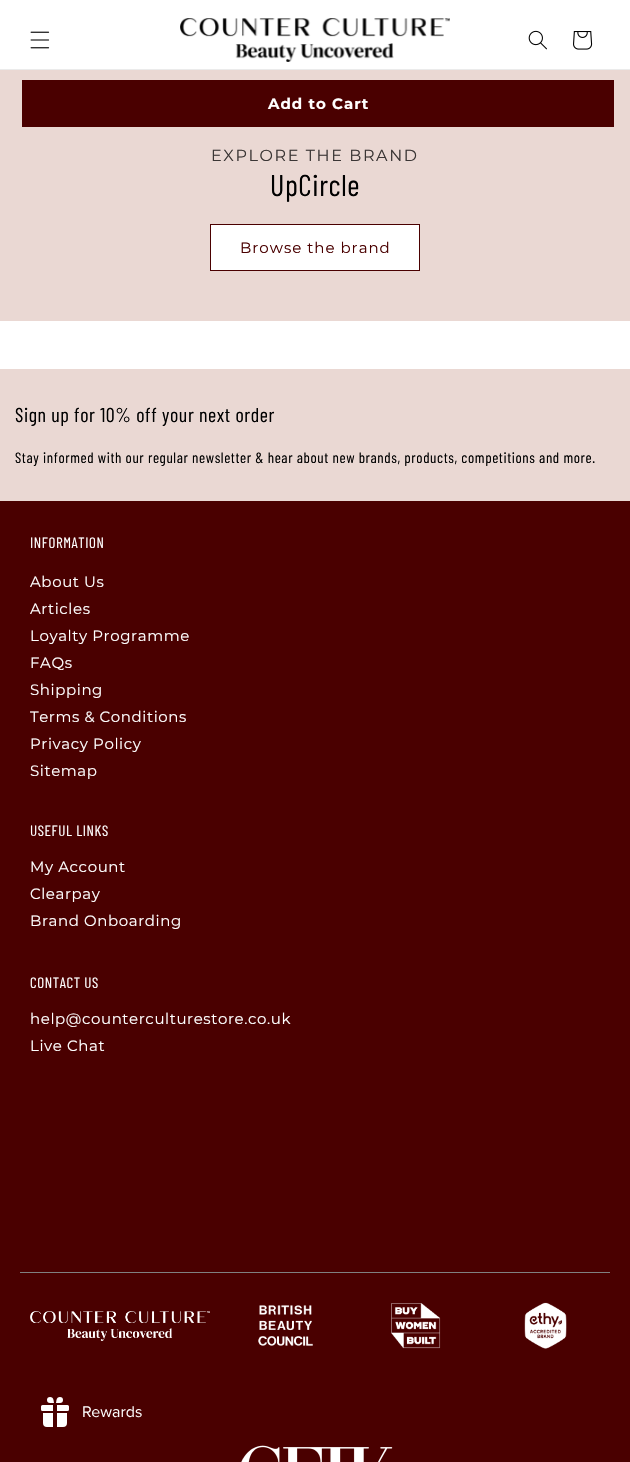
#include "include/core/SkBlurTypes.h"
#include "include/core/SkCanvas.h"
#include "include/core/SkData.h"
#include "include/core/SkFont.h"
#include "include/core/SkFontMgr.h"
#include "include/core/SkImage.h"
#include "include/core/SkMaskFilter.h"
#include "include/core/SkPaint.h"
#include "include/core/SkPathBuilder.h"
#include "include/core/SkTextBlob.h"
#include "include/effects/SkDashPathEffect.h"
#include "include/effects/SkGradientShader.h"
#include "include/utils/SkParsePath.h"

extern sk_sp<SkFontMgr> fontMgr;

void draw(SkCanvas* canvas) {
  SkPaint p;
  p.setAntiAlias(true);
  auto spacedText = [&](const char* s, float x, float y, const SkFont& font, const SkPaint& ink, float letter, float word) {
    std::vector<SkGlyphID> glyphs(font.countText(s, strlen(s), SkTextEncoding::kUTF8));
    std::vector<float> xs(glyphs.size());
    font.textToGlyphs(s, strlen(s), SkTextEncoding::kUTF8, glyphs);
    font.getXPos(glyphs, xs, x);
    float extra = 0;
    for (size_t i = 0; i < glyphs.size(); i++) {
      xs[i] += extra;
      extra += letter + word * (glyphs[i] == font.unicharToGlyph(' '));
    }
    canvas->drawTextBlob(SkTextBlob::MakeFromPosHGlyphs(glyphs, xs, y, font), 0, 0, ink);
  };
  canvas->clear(SK_ColorWHITE);
  p.setColor(SkColorSetRGB(235, 235, 235));
  canvas->drawRect(SkRect::MakeLTRB(0, 69, 630, 70), p);
  canvas->drawImageRect(SkImages::DeferredFromEncodedData(SkData::MakeFromFileName("images/1.png")), SkRect::MakeLTRB(30, 31, 50, 49), SkSamplingOptions());
  canvas->drawImageRect(SkImages::DeferredFromEncodedData(SkData::MakeFromFileName("images/2.png")), SkRect::MakeLTRB(180, 18, 450, 62), SkSamplingOptions());
  canvas->drawImageRect(SkImages::DeferredFromEncodedData(SkData::MakeFromFileName("images/3.png")), SkRect::MakeLTRB(528, 30, 547, 50), SkSamplingOptions());
  canvas->drawImageRect(SkImages::DeferredFromEncodedData(SkData::MakeFromFileName("images/4.png")), SkRect::MakeLTRB(573, 31, 593, 50), SkSamplingOptions());
  p.setColor(SkColorSetRGB(234, 216, 211));
  canvas->drawRect(SkRect::MakeLTRB(0, 70, 630, 321), p);
  p.setColor(SkColorSetRGB(74, 0, 0));
  canvas->drawRect(SkRect::MakeLTRB(22, 80, 614, 127), p);
  p.setColor(SK_ColorWHITE);
  canvas->drawRect(SkRect::MakeLTRB(211, 225, 419, 270), p);
  p.setStyle(SkPaint::kStroke_Style);
  p.setStrokeWidth(1);
  p.setColor(SkColorSetRGB(74, 0, 0));
  canvas->drawRect(SkRect::MakeLTRB(210.5f, 224.5f, 419.5f, 270.5f), p);
  p.setStyle(SkPaint::kFill_Style);
  canvas->drawRect(SkRect::MakeLTRB(0, 501, 630, 1462), p);
  p.setColor(SkColorSetRGB(234, 216, 211));
  canvas->drawRect(SkRect::MakeLTRB(0, 369, 630, 501), p);
  p.setColor(SkColorSetRGB(128, 128, 128));
  canvas->drawRect(SkRect::MakeLTRB(20, 1272, 610, 1273), p);
  canvas->drawImageRect(SkImages::DeferredFromEncodedData(SkData::MakeFromFileName("images/5.png")), SkRect::MakeLTRB(30, 1311, 210, 1341), SkSamplingOptions());
  canvas->drawImageRect(SkImages::DeferredFromEncodedData(SkData::MakeFromFileName("images/6.png")), SkRect::MakeLTRB(258, 1305, 313, 1346), SkSamplingOptions());
  canvas->drawImageRect(SkImages::DeferredFromEncodedData(SkData::MakeFromFileName("images/7.png")), SkRect::MakeLTRB(391, 1303, 441, 1349), SkSamplingOptions());
  canvas->drawImageRect(SkImages::DeferredFromEncodedData(SkData::MakeFromFileName("images/8.png")), SkRect::MakeLTRB(524, 1302, 567, 1349), SkSamplingOptions());
  canvas->drawImageRect(SkImages::DeferredFromEncodedData(SkData::MakeFromFileName("images/9.png")), SkRect::MakeLTRB(241, 1445, 393, 1462), SkSamplingOptions());
  canvas->drawImageRect(SkImages::DeferredFromEncodedData(SkData::MakeFromFileName("images/10.png")), SkRect::MakeLTRB(41, 1397, 142, 1427), SkSamplingOptions());
  SkFont font1(fontMgr->matchFamilyStyle("Montserrat", SkFontStyle::Bold()), 15);
  font1.setSubpixel(true);
  p.setColor(SK_ColorWHITE);
  spacedText("Add to Cart", 268, 109, font1, p, 1, 0);
  SkFont font2(fontMgr->matchFamilyStyle("Montserrat", SkFontStyle::Normal()), 16);
  font2.setSubpixel(true);
  p.setColor(SkColorSetRGB(59, 54, 53));
  spacedText("EXPLORE THE BRAND", 211, 161, font2, p, 1.6f, 0);
  SkFont font3(fontMgr->matchFamilyStyle("Barlow Condensed", SkFontStyle::Normal()), 30);
  font3.setSubpixel(true);
  p.setColor(SK_ColorBLACK);
  spacedText("UpCircle", 270, 196, font3, p, 0.6f, 0);
  SkFont font4(fontMgr->matchFamilyStyle("Montserrat", SkFontStyle::Normal()), 15);
  font4.setSubpixel(true);
  p.setColor(SkColorSetRGB(74, 0, 0));
  spacedText("Browse the brand", 240, 253, font4, p, 1, 0);
  SkFont font5(fontMgr->matchFamilyStyle("Barlow Condensed", SkFontStyle::Normal()), 20);
  font5.setSubpixel(true);
  p.setColor(SK_ColorBLACK);
  spacedText("Sign up for 10% off your next order", 15, 422, font5, p, 0.6f, 0);
  SkFont font6(fontMgr->matchFamilyStyle("Barlow Condensed", SkFontStyle::Normal()), 15);
  font6.setSubpixel(true);
  spacedText("Stay informed with our regular newsletter & hear about new brands, products, competitions and more.", 15, 463, font6, p, 0.6f, 0);
  p.setColor(SK_ColorWHITE);
  spacedText("INFORMATION", 30, 548, font6, p, 0.6f, 0);
  spacedText("About Us", 30, 587, font4, p, 0.6f, 0);
  spacedText("Articles", 30, 614, font4, p, 0.6f, 0);
  spacedText("Loyalty Programme", 30, 641, font4, p, 0.6f, 0);
  spacedText("FAQs", 30, 668, font4, p, 0.6f, 0);
  spacedText("Shipping", 30, 695, font4, p, 0.6f, 0);
  spacedText("Terms & Conditions", 30, 722, font4, p, 0.6f, 0);
  spacedText("Privacy Policy", 30, 749, font4, p, 0.6f, 0);
  spacedText("Sitemap", 30, 776, font4, p, 0.6f, 0);
  spacedText("USEFUL LINKS", 30, 836, font6, p, 0.6f, 0);
  spacedText("My Account", 30, 872, font4, p, 0.6f, 0);
  spacedText("Clearpay", 30, 899, font4, p, 0.6f, 0);
  spacedText("Brand Onboarding", 30, 926, font4, p, 0.6f, 0);
  spacedText("CONTACT US", 30, 988, font6, p, 0.6f, 0);
  spacedText("help@counterculturestore.co.uk", 30, 1024, font4, p, 0.6f, 0);
  spacedText("Live Chat", 30, 1051, font4, p, 0.6f, 0);
}
